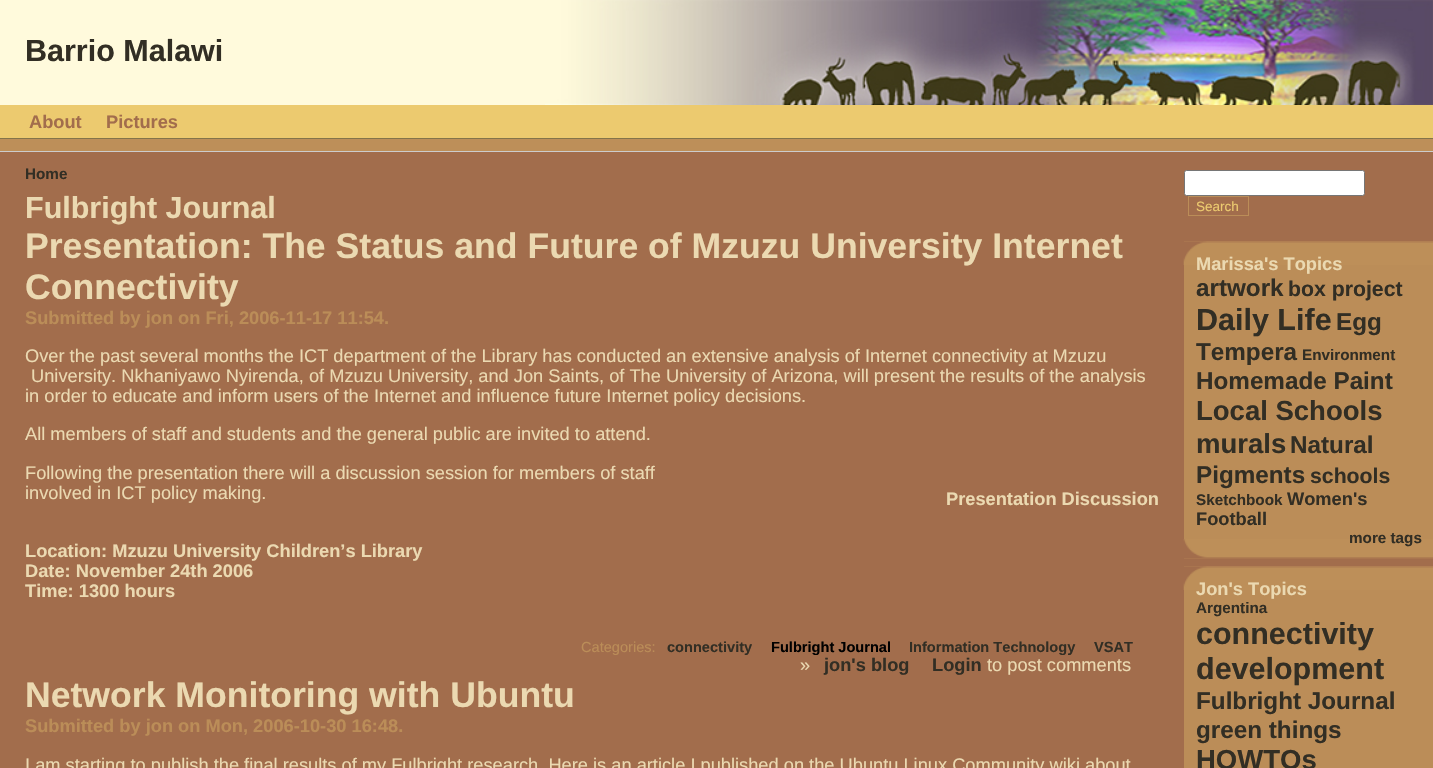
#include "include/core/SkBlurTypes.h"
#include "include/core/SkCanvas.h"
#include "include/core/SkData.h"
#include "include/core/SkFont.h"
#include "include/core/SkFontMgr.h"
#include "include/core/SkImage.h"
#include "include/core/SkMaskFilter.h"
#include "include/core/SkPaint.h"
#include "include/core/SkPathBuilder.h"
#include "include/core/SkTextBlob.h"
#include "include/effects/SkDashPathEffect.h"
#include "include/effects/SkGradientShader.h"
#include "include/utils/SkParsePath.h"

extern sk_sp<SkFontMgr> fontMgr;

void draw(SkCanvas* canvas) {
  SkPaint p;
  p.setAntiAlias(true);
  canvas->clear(SkColorSetRGB(255, 250, 220));
  canvas->drawImageRect(SkImages::DeferredFromEncodedData(SkData::MakeFromFileName("images/1.png")), SkRect::MakeLTRB(545, 0, 1433, 105), SkSamplingOptions());
  p.setColor(SkColorSetRGB(236, 202, 111));
  canvas->drawRect(SkRect::MakeLTRB(0, 105, 1433, 138), p);
  p.setColor(SkColorSetRGB(132, 116, 74));
  canvas->drawRect(SkRect::MakeLTRB(0, 138, 1433, 139), p);
  p.setColor(SkColorSetRGB(189, 143, 89));
  canvas->drawRect(SkRect::MakeLTRB(0, 139, 1433, 151), p);
  p.setColor(SkColorSetRGB(162, 109, 76));
  canvas->drawRect(SkRect::MakeLTRB(0, 152, 1433, 768), p);
  p.setColor(SkColorSetRGB(204, 204, 204));
  canvas->drawRect(SkRect::MakeLTRB(0, 151, 1433, 152), p);
  p.setColor(SK_ColorWHITE);
  canvas->drawRoundRect(SkRect::MakeLTRB(1184.5f, 170.5f, 1364.5f, 195.5f), 2, 2, p);
  p.setStyle(SkPaint::kStroke_Style);
  p.setStrokeWidth(1);
  p.setColor(SkColorSetRGB(118, 118, 118));
  canvas->drawRoundRect(SkRect::MakeLTRB(1184.5f, 170.5f, 1364.5f, 195.5f), 2, 2, p);
  p.setColor(SkColorSetRGB(187, 141, 88));
  canvas->drawRect(SkRect::MakeLTRB(1188.5f, 196.5f, 1248.5f, 215.5f), p);
  p.setStyle(SkPaint::kFill_Style);
  canvas->drawRect(SkRect::MakeLTRB(1184, 241, 1433, 559), p);
  canvas->drawImageRect(SkImages::DeferredFromEncodedData(SkData::MakeFromFileName("images/2.png")), SkRect::MakeLTRB(1183, 241, 1433, 265), SkSamplingOptions());
  canvas->drawImageRect(SkImages::DeferredFromEncodedData(SkData::MakeFromFileName("images/3.png")), SkRect::MakeLTRB(1183, 539, 1433, 559), SkSamplingOptions());
  canvas->drawRect(SkRect::MakeLTRB(1184, 566, 1433, 768), p);
  canvas->drawImageRect(SkImages::DeferredFromEncodedData(SkData::MakeFromFileName("images/2.png")), SkRect::MakeLTRB(1183, 566, 1433, 590), SkSamplingOptions());
  SkFont font1(fontMgr->matchFamilyStyle("Liberation Sans", SkFontStyle::Bold()), 30.5f);
  font1.setSubpixel(true);
  p.setColor(SkColorSetRGB(50, 46, 36));
  canvas->drawString("Barrio Malawi", 25, 61, font1, p);
  SkFont font2(fontMgr->matchFamilyStyle("Liberation Sans", SkFontStyle::Bold()), 18.25f);
  font2.setSubpixel(true);
  p.setColor(SkColorSetRGB(162, 109, 76));
  canvas->drawString("About", 29, 128, font2, p);
  canvas->drawString("Pictures", 106, 128, font2, p);
  SkFont font3(fontMgr->matchFamilyStyle("Liberation Sans", SkFontStyle::Bold()), 15.25f);
  font3.setSubpixel(true);
  p.setColor(SkColorSetRGB(50, 46, 36));
  canvas->drawString("Home", 25, 179, font3, p);
  p.setColor(SkColorSetRGB(235, 217, 177));
  canvas->drawString("Fulbright Journal", 25, 218, font1, p);
  SkFont font4(fontMgr->matchFamilyStyle("Liberation Sans", SkFontStyle::Bold()), 35.6f);
  font4.setSubpixel(true);
  canvas->drawString("Presentation: The Status and Future of Mzuzu University Internet", 25, 258, font4, p);
  canvas->drawString("Connectivity", 25, 299, font4, p);
  p.setColor(SkColorSetRGB(187, 141, 88));
  canvas->drawString("Submitted by jon on Fri, 2006-11-17 11:54.", 25, 324, font2, p);
  SkFont font5(fontMgr->matchFamilyStyle("Liberation Sans", SkFontStyle::Normal()), 18.25f);
  font5.setSubpixel(true);
  p.setColor(SkColorSetRGB(235, 217, 177));
  canvas->drawString("Over the past several months the ICT department of the Library has conducted an extensive analysis of Internet connectivity at Mzuzu", 25, 362, font5, p);
  canvas->drawString("University. Nkhaniyawo Nyirenda, of Mzuzu University, and Jon Saints, of The University of Arizona, will present the results of the analysis", 31, 382, font5, p);
  canvas->drawString("in order to educate and inform users of the Internet and influence future Internet policy decisions.", 25, 402, font5, p);
  canvas->drawString("All members of staff and students and the general public are invited to attend.", 25, 440, font5, p);
  canvas->drawString("Following the presentation there will a discussion session for members of staff", 25, 479, font5, p);
  canvas->drawString("involved in ICT policy making.", 25, 499, font5, p);
  canvas->drawString("Presentation Discussion", 946, 505, font2, p);
  canvas->drawString("Location: Mzuzu University Children’s Library", 25, 557, font2, p);
  canvas->drawString("Date: November 24th 2006", 25, 577, font2, p);
  canvas->drawString("Time: 1300 hours", 25, 597, font2, p);
  SkFont font6(fontMgr->matchFamilyStyle("Liberation Sans", SkFontStyle::Normal()), 14.6f);
  font6.setSubpixel(true);
  p.setColor(SkColorSetRGB(187, 141, 88));
  canvas->drawString("Categories:", 581, 652, font6, p);
  SkFont font7(fontMgr->matchFamilyStyle("Liberation Sans", SkFontStyle::Bold()), 14.6f);
  font7.setSubpixel(true);
  p.setColor(SkColorSetRGB(50, 46, 36));
  canvas->drawString("connectivity", 667, 652, font7, p);
  p.setColor(SK_ColorBLACK);
  canvas->drawString("Fulbright Journal", 771, 652, font7, p);
  p.setColor(SkColorSetRGB(50, 46, 36));
  canvas->drawString("Information Technology", 909, 652, font7, p);
  canvas->drawString("VSAT", 1094, 652, font7, p);
  p.setColor(SkColorSetRGB(235, 217, 177));
  canvas->drawString("»", 800, 671, font5, p);
  p.setColor(SkColorSetRGB(50, 46, 36));
  canvas->drawString("jon's blog", 824, 671, font2, p);
  canvas->drawString("Login", 932, 671, font2, p);
  p.setColor(SkColorSetRGB(235, 217, 177));
  canvas->drawString("to post comments", 987, 671, font5, p);
  canvas->drawString("Network Monitoring with Ubuntu", 25, 707, font4, p);
  p.setColor(SkColorSetRGB(187, 141, 88));
  canvas->drawString("Submitted by jon on Mon, 2006-10-30 16:48.", 25, 732, font2, p);
  p.setColor(SkColorSetRGB(235, 217, 177));
  canvas->drawString("I am starting to publish the final results of my Fulbright research. Here is an article I published on the Ubuntu Linux Community wiki about", 25, 771, font5, p);
  SkFont font8(fontMgr->matchFamilyStyle("Liberation Sans", SkFontStyle::Normal()), 13.5f);
  font8.setSubpixel(true);
  p.setColor(SkColorSetRGB(236, 202, 111));
  canvas->drawString("Search", 1196, 211, font8, p);
  p.setColor(SkColorSetRGB(235, 217, 177));
  canvas->drawString("Marissa's Topics", 1196, 270, font2, p);
  SkFont font9(fontMgr->matchFamilyStyle("Liberation Sans", SkFontStyle::Bold()), 24.25f);
  font9.setSubpixel(true);
  p.setColor(SkColorSetRGB(50, 46, 36));
  canvas->drawString("artwork", 1196, 296, font9, p);
  SkFont font10(fontMgr->matchFamilyStyle("Liberation Sans", SkFontStyle::Bold()), 21.25f);
  font10.setSubpixel(true);
  canvas->drawString("box project", 1288, 296, font10, p);
  canvas->drawString("Daily Life", 1196, 330, font1, p);
  canvas->drawString("Egg", 1336, 330, font9, p);
  canvas->drawString("Tempera", 1196, 360, font9, p);
  canvas->drawString("Environment", 1302, 360, font3, p);
  canvas->drawString("Homemade Paint", 1196, 389, font9, p);
  SkFont font11(fontMgr->matchFamilyStyle("Liberation Sans", SkFontStyle::Bold()), 27.5f);
  font11.setSubpixel(true);
  canvas->drawString("Local Schools", 1196, 420, font11, p);
  canvas->drawString("murals", 1196, 453, font11, p);
  canvas->drawString("Natural", 1290, 453, font9, p);
  canvas->drawString("Pigments", 1196, 483, font9, p);
  canvas->drawString("schools", 1310, 483, font10, p);
  canvas->drawString("Sketchbook", 1196, 505, font3, p);
  canvas->drawString("Women's", 1287, 505, font2, p);
  canvas->drawString("Football", 1196, 525, font2, p);
  canvas->drawString("more tags", 1349, 543, font3, p);
  p.setColor(SkColorSetRGB(235, 217, 177));
  canvas->drawString("Jon's Topics", 1196, 595, font2, p);
  p.setColor(SkColorSetRGB(50, 46, 36));
  canvas->drawString("Argentina", 1196, 613, font3, p);
  canvas->drawString("connectivity", 1196, 644, font1, p);
  canvas->drawString("development", 1196, 679, font1, p);
  canvas->drawString("Fulbright Journal", 1196, 709, font9, p);
  canvas->drawString("green things", 1196, 738, font9, p);
  canvas->drawString("HOWTOs", 1196, 769, font11, p);
}
